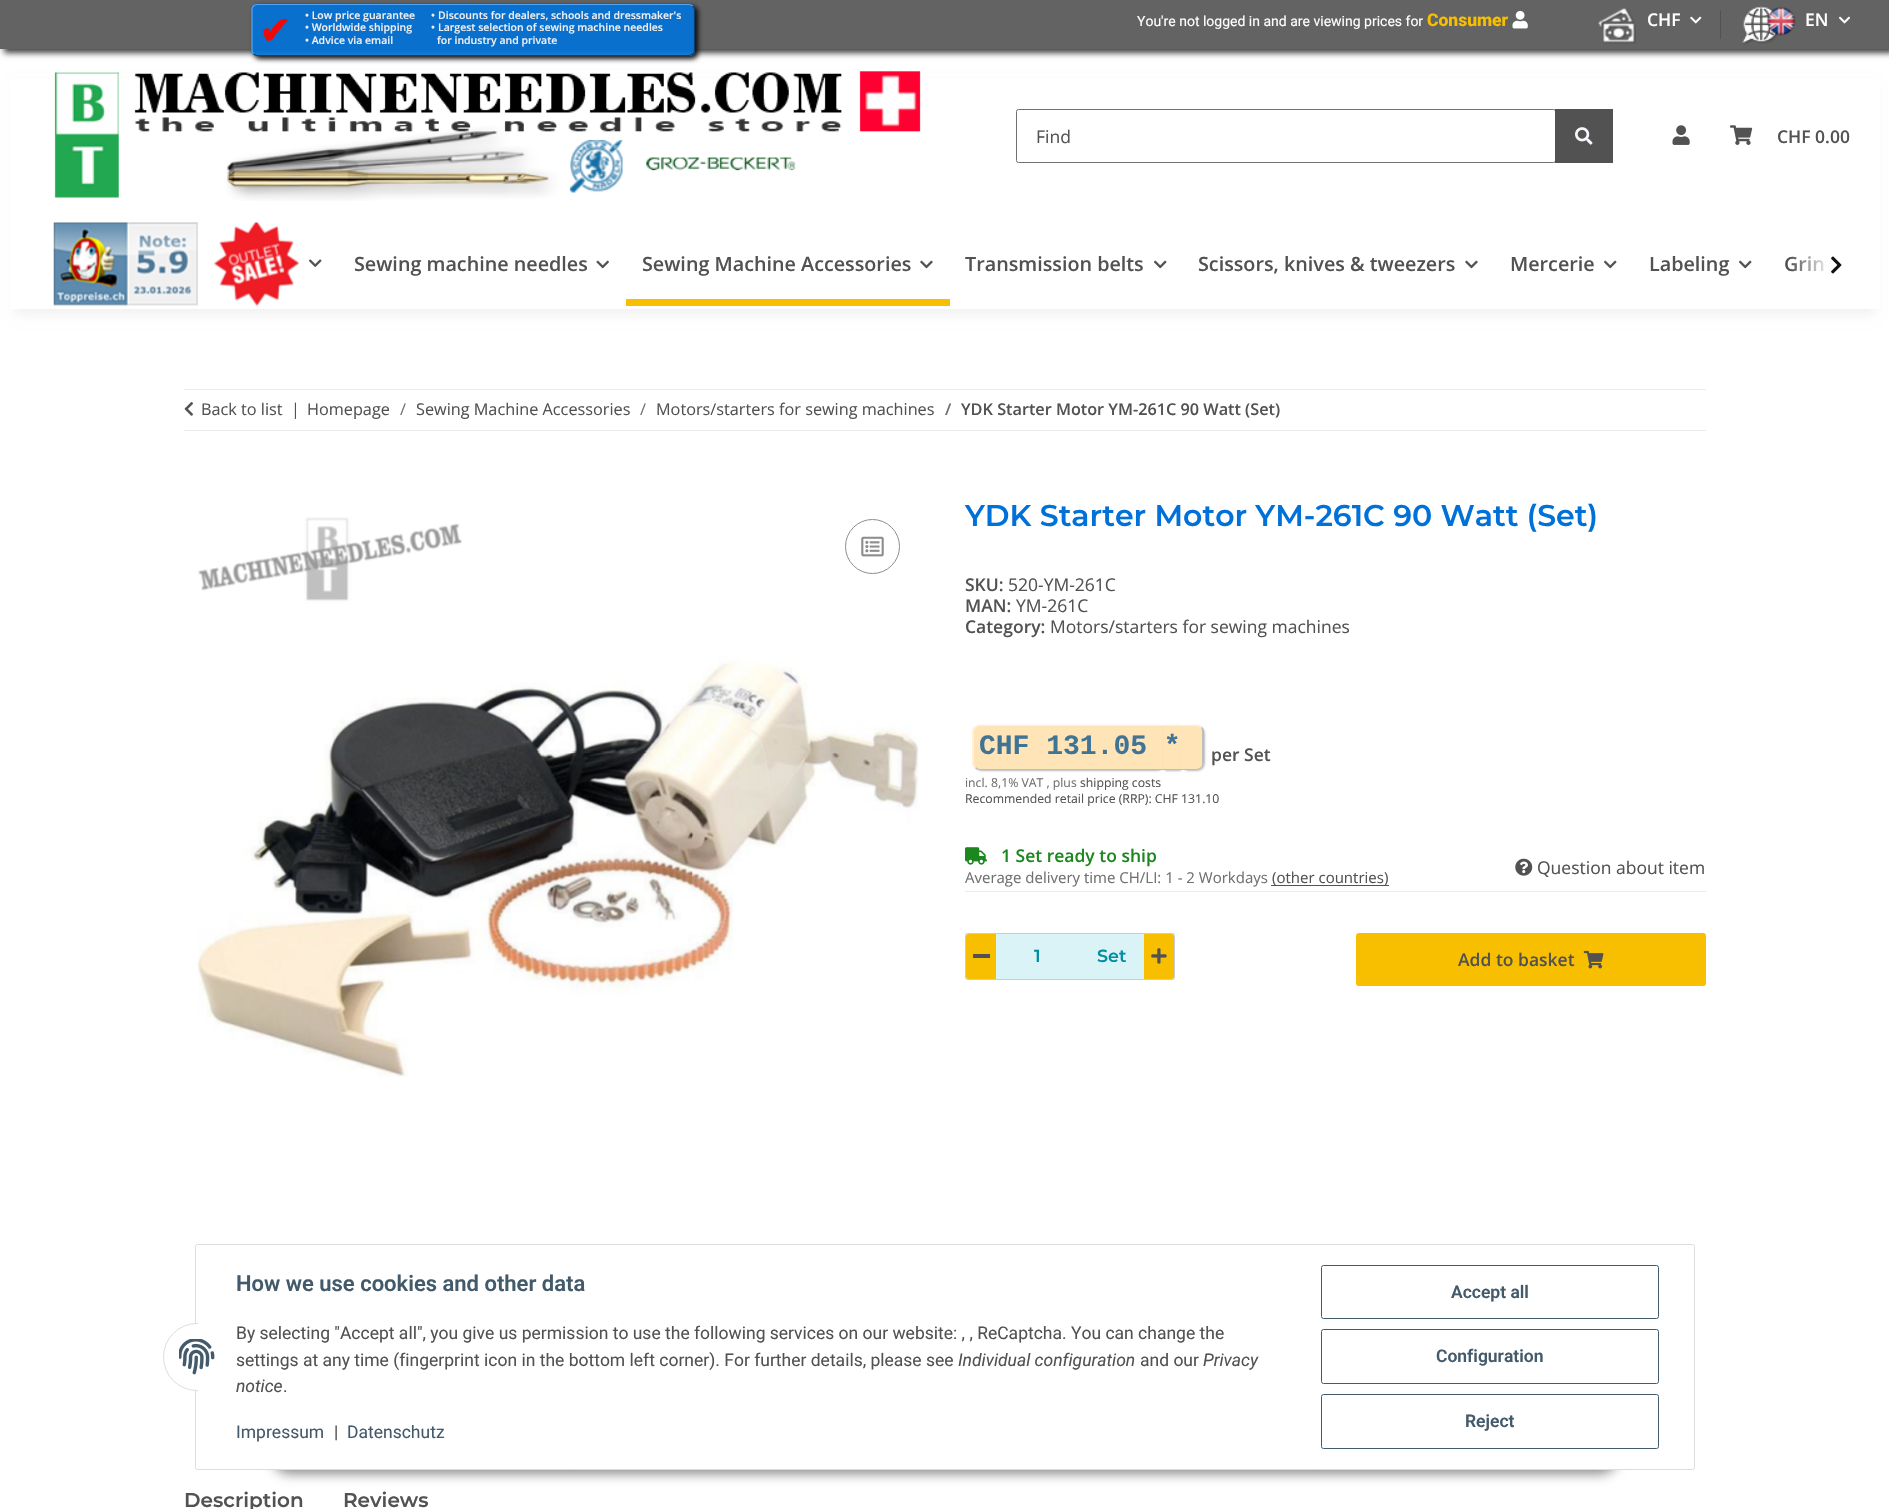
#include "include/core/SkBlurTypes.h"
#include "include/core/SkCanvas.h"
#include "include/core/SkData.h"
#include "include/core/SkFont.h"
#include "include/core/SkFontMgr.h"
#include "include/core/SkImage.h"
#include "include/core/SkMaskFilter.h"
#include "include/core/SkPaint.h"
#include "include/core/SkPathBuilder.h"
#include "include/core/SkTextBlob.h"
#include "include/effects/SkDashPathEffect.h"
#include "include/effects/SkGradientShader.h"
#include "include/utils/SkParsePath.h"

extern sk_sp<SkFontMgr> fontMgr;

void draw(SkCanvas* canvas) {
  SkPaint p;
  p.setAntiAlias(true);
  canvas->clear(SK_ColorWHITE);
  p.setColor(SkColorSetRGB(68, 68, 68));
  p.setMaskFilter(SkMaskFilter::MakeBlur(kNormal_SkBlurStyle, 3));
  canvas->drawRect(SkRect::MakeLTRB(4, 4, 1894, 53), p);
  p.setMaskFilter(nullptr);
  p.setColor(SkColorSetRGB(99, 99, 99));
  canvas->drawRect(SkRect::MakeLTRB(0, 0, 1889, 49), p);
  canvas->save();
  canvas->clipPath(SkPathBuilder(SkPathFillType::kEvenOdd).moveTo(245, 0).lineTo(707, 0).lineTo(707, 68).lineTo(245, 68).close().moveTo(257, 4).lineTo(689, 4).cubicTo(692.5f, 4, 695, 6.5f, 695, 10).lineTo(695, 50).cubicTo(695, 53.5f, 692.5f, 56, 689, 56).lineTo(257, 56).cubicTo(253.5f, 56, 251, 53.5f, 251, 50).lineTo(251, 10).cubicTo(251, 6.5f, 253.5f, 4, 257, 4).close().detach(), true);
  p.setColor(SkColorSetARGB(230, 0, 0, 0));
  p.setMaskFilter(SkMaskFilter::MakeBlur(kNormal_SkBlurStyle, 2.5f));
  canvas->drawRoundRect(SkRect::MakeLTRB(254, 6, 698, 59), 6, 6, p);
  p.setMaskFilter(nullptr);
  canvas->restore();
  p.setColor(SkColorSetARGB(230, 0, 113, 217));
  canvas->drawRoundRect(SkRect::MakeLTRB(251, 4, 695, 56), 6, 6, p);
  p.setStyle(SkPaint::kStroke_Style);
  p.setStrokeWidth(1.2f);
  p.setColor(SkColorSetARGB(230, 11, 56, 97));
  canvas->drawPath(SkPathBuilder().moveTo(692.5f, 6).cubicTo(694, 7, 694.5f, 8.5f, 694.5f, 10).lineTo(694.5f, 50).cubicTo(694.5f, 51.5f, 694, 53, 692.5f, 54).cubicTo(691.5f, 55, 690, 55.5f, 689, 55.5f).lineTo(257.5f, 55.5f).cubicTo(256, 55.5f, 254.5f, 55, 253.5f, 54).detach(), p);
  p.setColor(SkColorSetARGB(230, 88, 172, 250));
  canvas->drawPath(SkPathBuilder().moveTo(253.5f, 54).cubicTo(252.5f, 53, 252, 51.5f, 252, 50).lineTo(252, 10).cubicTo(252, 8.5f, 252.5f, 7, 253.5f, 6).cubicTo(254.5f, 5, 256, 4.5f, 257.5f, 4.5f).lineTo(689, 4.5f).cubicTo(690, 4.5f, 691.5f, 5, 692.5f, 6).detach(), p);
  canvas->drawImageRect(SkImages::DeferredFromEncodedData(SkData::MakeFromFileName("images/1.png")), SkRect::MakeLTRB(1512, 10, 1528, 29), SkSamplingOptions());
  canvas->drawImageRect(SkImages::DeferredFromEncodedData(SkData::MakeFromFileName("images/2.png")), SkRect::MakeLTRB(1598, 7, 1636, 44), SkSamplingOptions());
  canvas->drawImageRect(SkImages::DeferredFromEncodedData(SkData::MakeFromFileName("images/3.png")), SkRect::MakeLTRB(1690, 16, 1702, 24), SkSamplingOptions());
  p.setStyle(SkPaint::kFill_Style);
  p.setColor(SkColorSetRGB(82, 82, 82));
  canvas->drawRect(SkRect::MakeLTRB(1720, 10, 1721, 39), p);
  canvas->drawImageRect(SkImages::DeferredFromEncodedData(SkData::MakeFromFileName("images/4.png")), SkRect::MakeLTRB(1742, 6, 1780, 45), SkSamplingOptions());
  canvas->drawImageRect(SkImages::DeferredFromEncodedData(SkData::MakeFromFileName("images/5.png")), SkRect::MakeLTRB(1766, 6, 1796, 36), SkSamplingOptions());
  canvas->drawImageRect(SkImages::DeferredFromEncodedData(SkData::MakeFromFileName("images/6.png")), SkRect::MakeLTRB(1839, 16, 1850, 24), SkSamplingOptions());
  p.setColor(SkColorSetARGB(15, 0, 0, 0));
  p.setMaskFilter(SkMaskFilter::MakeBlur(kNormal_SkBlurStyle, 5.5f));
  canvas->drawRect(SkRect::MakeLTRB(15, 84, 1875, 314), p);
  p.setMaskFilter(nullptr);
  p.setColor(SK_ColorWHITE);
  canvas->drawRect(SkRect::MakeLTRB(10, 79, 1880, 309), p);
  canvas->drawImageRect(SkImages::DeferredFromEncodedData(SkData::MakeFromFileName("images/7.png")), SkRect::MakeLTRB(54, 71, 921, 201), SkSamplingOptions());
  p.setStyle(SkPaint::kStroke_Style);
  p.setStrokeWidth(1);
  p.setColor(SkColorSetRGB(112, 112, 112));
  canvas->drawRoundRect(SkRect::MakeLTRB(1016.5f, 109.5f, 1555.5f, 162.5f), 2, 2, p);
  p.setStyle(SkPaint::kFill_Style);
  p.setColor(SkColorSetRGB(82, 82, 82));
  canvas->drawRect(SkRect::MakeLTRB(1555, 109, 1613, 163), p);
  canvas->drawImageRect(SkImages::DeferredFromEncodedData(SkData::MakeFromFileName("images/8.png")), SkRect::MakeLTRB(1575, 127, 1593, 145), SkSamplingOptions());
  canvas->drawImageRect(SkImages::DeferredFromEncodedData(SkData::MakeFromFileName("images/9.png")), SkRect::MakeLTRB(1672, 125, 1690, 145), SkSamplingOptions());
  canvas->drawImageRect(SkImages::DeferredFromEncodedData(SkData::MakeFromFileName("images/10.png")), SkRect::MakeLTRB(1730, 125, 1753, 145), SkSamplingOptions());
  canvas->drawImageRect(SkImages::DeferredFromEncodedData(SkData::MakeFromFileName("images/11.png")), SkRect::MakeLTRB(53, 222, 198, 306), SkSamplingOptions());
  canvas->drawImageRect(SkImages::DeferredFromEncodedData(SkData::MakeFromFileName("images/12.png")), SkRect::MakeLTRB(213, 222, 299, 307), SkSamplingOptions());
  canvas->drawImageRect(SkImages::DeferredFromEncodedData(SkData::MakeFromFileName("images/13.png")), SkRect::MakeLTRB(309, 259, 322, 267), SkSamplingOptions());
  canvas->drawImageRect(SkImages::DeferredFromEncodedData(SkData::MakeFromFileName("images/14.png")), SkRect::MakeLTRB(596, 260, 609, 269), SkSamplingOptions());
  canvas->drawImageRect(SkImages::DeferredFromEncodedData(SkData::MakeFromFileName("images/15.png")), SkRect::MakeLTRB(920, 260, 933, 269), SkSamplingOptions());
  p.setColor(SkColorSetRGB(248, 191, 0));
  canvas->drawRect(SkRect::MakeLTRB(626, 299, 950, 306), p);
  canvas->drawImageRect(SkImages::DeferredFromEncodedData(SkData::MakeFromFileName("images/16.png")), SkRect::MakeLTRB(1154, 260, 1167, 269), SkSamplingOptions());
  canvas->drawImageRect(SkImages::DeferredFromEncodedData(SkData::MakeFromFileName("images/15.png")), SkRect::MakeLTRB(1465, 260, 1478, 269), SkSamplingOptions());
  canvas->drawImageRect(SkImages::DeferredFromEncodedData(SkData::MakeFromFileName("images/16.png")), SkRect::MakeLTRB(1604, 260, 1617, 269), SkSamplingOptions());
  canvas->drawImageRect(SkImages::DeferredFromEncodedData(SkData::MakeFromFileName("images/16.png")), SkRect::MakeLTRB(1739, 260, 1752, 269), SkSamplingOptions());
  canvas->drawImageRect(SkImages::DeferredFromEncodedData(SkData::MakeFromFileName("images/17.png")), SkRect::MakeLTRB(1831, 256, 1842, 274), SkSamplingOptions());
  p.setColor(SkColorSetRGB(235, 235, 235));
  canvas->drawRect(SkRect::MakeLTRB(184, 389, 1706, 390), p);
  canvas->drawRect(SkRect::MakeLTRB(184, 430, 1706, 431), p);
  canvas->drawImageRect(SkImages::DeferredFromEncodedData(SkData::MakeFromFileName("images/18.png")), SkRect::MakeLTRB(184, 402, 193, 416), SkSamplingOptions());
  canvas->drawImageRect(SkImages::DeferredFromEncodedData(SkData::MakeFromFileName("images/19.png")), SkRect::MakeLTRB(197, 517, 919, 1077), SkSamplingOptions());
  p.setStyle(SkPaint::kStroke_Style);
  p.setColor(SkColorSetRGB(141, 141, 141));
  canvas->drawCircle(872.5f, 546.5f, 27, p);
  canvas->drawImageRect(SkImages::DeferredFromEncodedData(SkData::MakeFromFileName("images/20.png")), SkRect::MakeLTRB(861, 536, 884, 557), SkSamplingOptions());
  p.setStyle(SkPaint::kFill_Style);
  p.setColor(SkColorSetRGB(189, 189, 189));
  p.setMaskFilter(SkMaskFilter::MakeBlur(kNormal_SkBlurStyle, 1));
  canvas->drawRoundRect(SkRect::MakeLTRB(974, 726, 1165, 771), 8, 8, p);
  p.setMaskFilter(nullptr);
  p.setColor(SkColorSetRGB(255, 228, 184));
  canvas->drawPath(SkPathBuilder().moveTo(981, 725).lineTo(1164, 725).lineTo(1164, 770).lineTo(981, 770).cubicTo(976.5f, 770, 973, 766.5f, 973, 762).lineTo(973, 733).cubicTo(973, 728.5f, 976.5f, 725, 981, 725).close().detach(), p);
  p.setColor(SkColorSetRGB(255, 239, 213));
  canvas->drawPath(SkPathBuilder().moveTo(980, 725).cubicTo(978, 725, 976, 726, 974, 727).lineTo(976, 728).cubicTo(977, 727, 978, 726, 980, 726).lineTo(1164, 726).lineTo(1164, 725).close().detach(), p);
  p.setColor(SkColorSetRGB(189, 189, 189));
  canvas->drawPath(SkPathBuilder().moveTo(1164, 770).lineTo(1164, 769).lineTo(980, 769).cubicTo(978, 769, 977, 768, 976, 767).lineTo(975, 768).cubicTo(976, 769, 978, 770, 980, 770).close().detach(), p);
  p.setColor(SkColorSetRGB(255, 239, 213));
  canvas->drawPath(SkPathBuilder().moveTo(972, 730).lineTo(974, 727).lineTo(976, 728).cubicTo(975, 729, 974, 731, 974, 732).lineTo(974, 762).cubicTo(974, 764, 975, 766, 976, 767).lineTo(975, 768).lineTo(972, 765).close().detach(), p);
  p.setColor(SkColorSetRGB(189, 189, 189));
  p.setMaskFilter(SkMaskFilter::MakeBlur(kNormal_SkBlurStyle, 1));
  canvas->drawRect(SkRect::MakeLTRB(1165, 726, 1181, 771), p);
  p.setMaskFilter(nullptr);
  p.setColor(SkColorSetRGB(255, 228, 184));
  canvas->drawRect(SkRect::MakeLTRB(1164, 726, 1180, 769), p);
  p.setColor(SkColorSetRGB(255, 239, 213));
  canvas->drawRect(SkRect::MakeLTRB(1164, 725, 1180, 726), p);
  p.setColor(SkColorSetRGB(189, 189, 189));
  canvas->drawRect(SkRect::MakeLTRB(1164, 769, 1180, 770), p);
  p.setMaskFilter(SkMaskFilter::MakeBlur(kNormal_SkBlurStyle, 1));
  canvas->drawRoundRect(SkRect::MakeLTRB(1181, 726, 1205, 771), 8, 8, p);
  p.setMaskFilter(nullptr);
  p.setColor(SkColorSetRGB(255, 228, 184));
  canvas->drawPath(SkPathBuilder().moveTo(1180, 725).lineTo(1196, 725).cubicTo(1200.5f, 725, 1204, 728.5f, 1204, 733).lineTo(1204, 762).cubicTo(1204, 766.5f, 1200.5f, 770, 1196, 770).lineTo(1180, 770).close().detach(), p);
  p.setColor(SkColorSetRGB(255, 239, 213));
  canvas->drawPath(SkPathBuilder().moveTo(1180, 725).lineTo(1180, 726).lineTo(1196, 726).cubicTo(1198, 726, 1199.5f, 727, 1200.5f, 728).lineTo(1201.5f, 727).cubicTo(1200, 726, 1198, 725, 1196, 725).close().detach(), p);
  p.setColor(SkColorSetRGB(189, 189, 189));
  canvas->drawPath(SkPathBuilder().moveTo(1201, 767).cubicTo(1202, 766, 1202, 764, 1202, 762).lineTo(1202, 732).cubicTo(1202, 731, 1202, 729, 1201, 728).lineTo(1202, 727).lineTo(1204, 730).lineTo(1204, 758).cubicTo(1204, 762, 1204, 765, 1202, 768).close().detach(), p);
  canvas->drawPath(SkPathBuilder().moveTo(1180, 769).lineTo(1180, 770).lineTo(1196, 770).cubicTo(1198, 770, 1200, 769, 1201.5f, 768).lineTo(1200.5f, 767).cubicTo(1199.5f, 768, 1198, 769, 1196, 769).close().detach(), p);
  p.setColor(SkColorSetRGB(235, 235, 235));
  canvas->drawRect(SkRect::MakeLTRB(965, 891, 1706, 892), p);
  canvas->drawImageRect(SkImages::DeferredFromEncodedData(SkData::MakeFromFileName("images/21.png")), SkRect::MakeLTRB(965, 847, 987, 865), SkSamplingOptions());
  p.setColor(SkColorSetRGB(82, 82, 82));
  canvas->drawRect(SkRect::MakeLTRB(1271, 885, 1389, 886), p);
  canvas->drawImageRect(SkImages::DeferredFromEncodedData(SkData::MakeFromFileName("images/22.png")), SkRect::MakeLTRB(1515, 858, 1533, 876), SkSamplingOptions());
  p.setColor(SkColorSetRGB(218, 243, 247));
  canvas->drawRoundRect(SkRect::MakeLTRB(965.5f, 933.5f, 1174.5f, 979.5f), 2, 2, p);
  p.setStyle(SkPaint::kStroke_Style);
  p.setColor(SkColorSetRGB(204, 204, 204));
  canvas->drawRoundRect(SkRect::MakeLTRB(965.5f, 933.5f, 1174.5f, 979.5f), 2, 2, p);
  p.setStyle(SkPaint::kFill_Style);
  p.setColor(SkColorSetRGB(248, 191, 0));
  canvas->drawPath(SkPathBuilder().moveTo(968.5f, 934).lineTo(996, 934).lineTo(996, 979).lineTo(968.5f, 979).cubicTo(967, 979, 966, 978, 966, 976.5f).lineTo(966, 936.5f).cubicTo(966, 935, 967, 934, 968.5f, 934).close().detach(), p);
  p.setColor(SkColorSetRGB(82, 82, 82));
  canvas->drawRect(SkRect::MakeLTRB(973, 954, 990, 958), p);
  p.setColor(SkColorSetRGB(248, 191, 0));
  canvas->drawPath(SkPathBuilder().moveTo(1144, 934).lineTo(1171.5f, 934).cubicTo(1173, 934, 1174, 935, 1174, 936.5f).lineTo(1174, 976.5f).cubicTo(1174, 978, 1173, 979, 1171.5f, 979).lineTo(1144, 979).close().detach(), p);
  canvas->drawImageRect(SkImages::DeferredFromEncodedData(SkData::MakeFromFileName("images/23.png")), SkRect::MakeLTRB(1151, 948, 1167, 964), SkSamplingOptions());
  canvas->drawRoundRect(SkRect::MakeLTRB(1356.5f, 933.5f, 1705.5f, 985.5f), 2, 2, p);
  p.setStyle(SkPaint::kStroke_Style);
  canvas->drawRoundRect(SkRect::MakeLTRB(1356.5f, 933.5f, 1705.5f, 985.5f), 2, 2, p);
  canvas->drawImageRect(SkImages::DeferredFromEncodedData(SkData::MakeFromFileName("images/24.png")), SkRect::MakeLTRB(1583, 950, 1604, 969), SkSamplingOptions());
  p.setStyle(SkPaint::kFill_Style);
  p.setColor(SkColorSetARGB(115, 0, 0, 0));
  p.setMaskFilter(SkMaskFilter::MakeBlur(kNormal_SkBlurStyle, 6));
  canvas->drawRoundRect(SkRect::MakeLTRB(271, 1434, 1619, 1474), 20, 20, p);
  p.setMaskFilter(nullptr);
  p.setColor(SK_ColorWHITE);
  canvas->drawRoundRect(SkRect::MakeLTRB(195.5f, 1244.5f, 1694.5f, 1469.5f), 2, 2, p);
  p.setStyle(SkPaint::kStroke_Style);
  p.setColor(SkColorSetRGB(221, 221, 221));
  canvas->drawRoundRect(SkRect::MakeLTRB(195.5f, 1244.5f, 1694.5f, 1469.5f), 2, 2, p);
  p.setStyle(SkPaint::kFill_Style);
  p.setColor(SK_ColorWHITE);
  canvas->drawCircle(197, 1357, 33.5f, p);
  p.setStyle(SkPaint::kStroke_Style);
  p.setColor(SkColorSetRGB(221, 221, 221));
  canvas->drawCircle(197, 1357, 33.5f, p);
  p.setStyle(SkPaint::kFill_Style);
  p.setColor(SK_ColorWHITE);
  canvas->drawRect(SkRect::MakeLTRB(198, 1323, 231, 1391), p);
  canvas->drawImageRect(SkImages::DeferredFromEncodedData(SkData::MakeFromFileName("images/25.png")), SkRect::MakeLTRB(179, 1339, 215, 1375), SkSamplingOptions());
  p.setStyle(SkPaint::kStroke_Style);
  p.setColor(SkColorSetRGB(67, 90, 107));
  canvas->drawRoundRect(SkRect::MakeLTRB(1321.5f, 1265.5f, 1658.5f, 1318.5f), 2, 2, p);
  canvas->drawRoundRect(SkRect::MakeLTRB(1321.5f, 1329.5f, 1658.5f, 1383.5f), 2, 2, p);
  canvas->drawRoundRect(SkRect::MakeLTRB(1321.5f, 1394.5f, 1658.5f, 1448.5f), 2, 2, p);
  SkFont font1(fontMgr->matchFamilyStyle("DejaVu Sans", SkFontStyle::Bold()), 38);
  font1.setSubpixel(true);
  p.setStyle(SkPaint::kFill_Style);
  p.setColor(SkColorSetRGB(239, 10, 10));
  canvas->drawString("✔", 259, 44, font1, p);
  SkFont font2(fontMgr->matchFamilyStyle("Open Sans", SkFontStyle(600, SkFontStyle::kNormal_Width, SkFontStyle::kUpright_Slant)), 10.5f);
  font2.setSubpixel(true);
  p.setColor(SkColorSetRGB(239, 239, 239));
  canvas->drawString("• Low price guarantee", 305, 19, font2, p);
  canvas->drawString("• Worldwide shipping", 305, 31, font2, p);
  canvas->drawString("• Advice via email", 305, 44, font2, p);
  canvas->drawString("•", 431, 19, font2, p);
  canvas->drawString("Discounts for dealers, schools and dressmaker's", 438, 19, font2, p);
  canvas->drawString("•", 431, 31, font2, p);
  canvas->drawString("Largest selection of sewing machine needles", 438, 31, font2, p);
  canvas->drawString("for industry and private", 437, 44, font2, p);
  SkFont font3(fontMgr->matchFamilyStyle("Roboto", SkFontStyle::Normal()), 14);
  font3.setSubpixel(true);
  p.setColor(SK_ColorWHITE);
  canvas->drawString("You're not logged in and are viewing prices for", 1137, 26, font3, p);
  SkFont font4(fontMgr->matchFamilyStyle("Roboto", SkFontStyle(800, SkFontStyle::kNormal_Width, SkFontStyle::kUpright_Slant)), 17.5f);
  font4.setSubpixel(true);
  p.setColor(SkColorSetRGB(248, 191, 0));
  canvas->drawString("Consumer", 1427, 26, font4, p);
  SkFont font5(fontMgr->matchFamilyStyle("Open Sans", SkFontStyle(600, SkFontStyle::kNormal_Width, SkFontStyle::kUpright_Slant)), 17.5f);
  font5.setSubpixel(true);
  p.setColor(SK_ColorWHITE);
  canvas->drawString("CHF", 1647, 26, font5, p);
  canvas->drawString("EN", 1805, 26, font5, p);
  SkFont font6(fontMgr->matchFamilyStyle("Open Sans", SkFontStyle::Normal()), 17.5f);
  font6.setSubpixel(true);
  p.setColor(SkColorSetRGB(82, 82, 82));
  canvas->drawString("Find", 1036, 143, font6, p);
  canvas->drawString("CHF 0.00", 1777, 143, font5, p);
  SkFont font7(fontMgr->matchFamilyStyle("Open Sans", SkFontStyle(600, SkFontStyle::kNormal_Width, SkFontStyle::kUpright_Slant)), 19.75f);
  font7.setSubpixel(true);
  canvas->drawString("Sewing machine needles", 354, 271, font7, p);
  canvas->drawString("Sewing Machine Accessories", 642, 271, font7, p);
  canvas->drawString("Transmission belts", 965, 271, font7, p);
  canvas->drawString("Scissors, knives & tweezers", 1198, 271, font7, p);
  canvas->drawString("Mercerie", 1510, 271, font7, p);
  canvas->drawString("Labeling", 1649, 271, font7, p);
  canvas->drawString("Grin", 1784, 271, font7, p);
  {
    const SkColor colors[] = {SkColorSetARGB(3, 255, 255, 255), SK_ColorWHITE};
    const float stops[] = {0, 0.7f};
    const SkPoint ends[] = {{1790, 266}, {1850, 266}};
    p.setShader(SkGradientShader::MakeLinear(ends, colors, stops, 2, SkTileMode::kClamp));
    p.setAlpha(255);
  }
  canvas->drawRect(SkRect::MakeLTRB(1790, 256, 1824, 271), p);
  SkFont font8(fontMgr->matchFamilyStyle("Open Sans", SkFontStyle::Normal()), 16.25f);
  font8.setSubpixel(true);
  p.setShader(nullptr);
  p.setColor(SkColorSetRGB(82, 82, 82));
  canvas->drawString("Back to list", 201, 415, font8, p);
  canvas->drawString("|", 291, 415, font8, p);
  canvas->drawString("Homepage", 307, 415, font8, p);
  p.setColor(SkColorSetRGB(112, 112, 112));
  canvas->drawString("/", 400, 415, font8, p);
  p.setColor(SkColorSetRGB(82, 82, 82));
  canvas->drawString("Sewing Machine Accessories", 416, 415, font8, p);
  p.setColor(SkColorSetRGB(112, 112, 112));
  canvas->drawString("/", 640, 415, font8, p);
  p.setColor(SkColorSetRGB(82, 82, 82));
  canvas->drawString("Motors/starters for sewing machines", 656, 415, font8, p);
  SkFont font9(fontMgr->matchFamilyStyle("Open Sans", SkFontStyle(600, SkFontStyle::kNormal_Width, SkFontStyle::kUpright_Slant)), 16.25f);
  font9.setSubpixel(true);
  p.setColor(SkColorSetRGB(112, 112, 112));
  canvas->drawString("/", 945, 415, font9, p);
  p.setColor(SkColorSetRGB(82, 82, 82));
  canvas->drawString("YDK Starter Motor YM-261C 90 Watt (Set)", 961, 415, font9, p);
  SkFont font10(fontMgr->matchFamilyStyle("Montserrat", SkFontStyle(600, SkFontStyle::kNormal_Width, SkFontStyle::kUpright_Slant)), 30);
  font10.setSubpixel(true);
  p.setColor(SkColorSetRGB(0, 113, 217));
  canvas->drawString("YDK Starter Motor YM-261C 90 Watt (Set)", 965, 526, font10, p);
  p.setColor(SkColorSetRGB(82, 82, 82));
  canvas->drawString("SKU:", 965, 591, font5, p);
  canvas->drawString("520-YM-261C", 1008, 591, font6, p);
  canvas->drawString("MAN:", 965, 612, font5, p);
  canvas->drawString("YM-261C", 1016, 612, font6, p);
  canvas->drawString("Category:", 965, 633, font5, p);
  canvas->drawString("Motors/starters for sewing machines", 1050, 633, font6, p);
  SkFont font11(fontMgr->matchFamilyStyle("Liberation Mono", SkFontStyle::Bold()), 28);
  font11.setSubpixel(true);
  p.setColor(SkColorSetRGB(64, 116, 149));
  canvas->drawString("CHF 131.05 *", 979, 754, font11, p);
  p.setColor(SkColorSetRGB(82, 82, 82));
  canvas->drawString("per Set", 1211, 761, font5, p);
  SkFont font12(fontMgr->matchFamilyStyle("Open Sans", SkFontStyle::Normal()), 12.25f);
  font12.setSubpixel(true);
  p.setColor(SkColorSetRGB(112, 112, 112));
  canvas->drawString("incl. 8,1% VAT , plus", 965, 787, font12, p);
  p.setColor(SkColorSetRGB(82, 82, 82));
  canvas->drawString("shipping costs", 1080, 787, font12, p);
  canvas->drawString("Recommended retail price (RRP): CHF 131.10", 965, 803, font12, p);
  p.setColor(SkColorSetRGB(28, 135, 30));
  canvas->drawString("1 Set ready to ship", 1001, 862, font5, p);
  SkFont font13(fontMgr->matchFamilyStyle("Open Sans", SkFontStyle::Normal()), 15);
  font13.setSubpixel(true);
  p.setColor(SkColorSetRGB(112, 112, 112));
  canvas->drawString("Average delivery time CH/LI: 1 - 2 Workdays", 965, 883, font13, p);
  p.setColor(SkColorSetRGB(82, 82, 82));
  canvas->drawString("(other countries)", 1272, 883, font13, p);
  canvas->drawString("Question about item", 1537, 874, font6, p);
  SkFont font14(fontMgr->matchFamilyStyle("Montserrat", SkFontStyle(600, SkFontStyle::kNormal_Width, SkFontStyle::kUpright_Slant)), 17.5f);
  font14.setSubpixel(true);
  p.setColor(SkColorSetRGB(2, 141, 163));
  canvas->drawString("1", 1034, 962, font14, p);
  canvas->drawString("Set", 1097, 962, font14, p);
  p.setColor(SkColorSetRGB(82, 82, 82));
  canvas->drawString("Add to basket", 1458, 966, font5, p);
  SkFont font15(fontMgr->matchFamilyStyle("Montserrat", SkFontStyle(600, SkFontStyle::kNormal_Width, SkFontStyle::kUpright_Slant)), 20);
  font15.setSubpixel(true);
  canvas->drawString("Description", 184, 1507, font15, p);
  canvas->drawString("Reviews", 343, 1507, font15, p);
  SkFont font16(fontMgr->matchFamilyStyle("Roboto", SkFontStyle(600, SkFontStyle::kNormal_Width, SkFontStyle::kUpright_Slant)), 22);
  font16.setSubpixel(true);
  p.setColor(SkColorSetRGB(67, 90, 107));
  canvas->drawString("How we use cookies and other data", 236, 1291, font16, p);
  SkFont font17(fontMgr->matchFamilyStyle("Roboto", SkFontStyle::Normal()), 17.5f);
  font17.setSubpixel(true);
  p.setColor(SkColorSetRGB(82, 82, 82));
  canvas->drawString("By selecting \"Accept all\", you give us permission to use the following services on our website: , , ReCaptcha. You can change the", 236, 1339, font17, p);
  canvas->drawString("settings at any time (fingerprint icon in the bottom left corner). For further details, please see", 236, 1366, font17, p);
  SkFont font18(fontMgr->matchFamilyStyle("Roboto", SkFontStyle::Italic()), 17.5f);
  font18.setSubpixel(true);
  canvas->drawString("Individual configuration", 958, 1366, font18, p);
  canvas->drawString("and our", 1140, 1366, font17, p);
  canvas->drawString("Privacy", 1203, 1366, font18, p);
  canvas->drawString("notice", 236, 1392, font18, p);
  canvas->drawString(".", 283, 1392, font17, p);
  p.setColor(SkColorSetRGB(67, 90, 107));
  canvas->drawString("Impressum", 236, 1438, font17, p);
  p.setColor(SkColorSetRGB(82, 82, 82));
  canvas->drawString("|", 334, 1438, font17, p);
  p.setColor(SkColorSetRGB(67, 90, 107));
  canvas->drawString("Datenschutz", 347, 1438, font17, p);
  SkFont font19(fontMgr->matchFamilyStyle("Roboto", SkFontStyle(600, SkFontStyle::kNormal_Width, SkFontStyle::kUpright_Slant)), 17.5f);
  font19.setSubpixel(true);
  canvas->drawString("Accept all", 1451, 1298, font19, p);
  canvas->drawString("Configuration", 1436, 1362, font19, p);
  canvas->drawString("Reject", 1465, 1427, font19, p);
}
